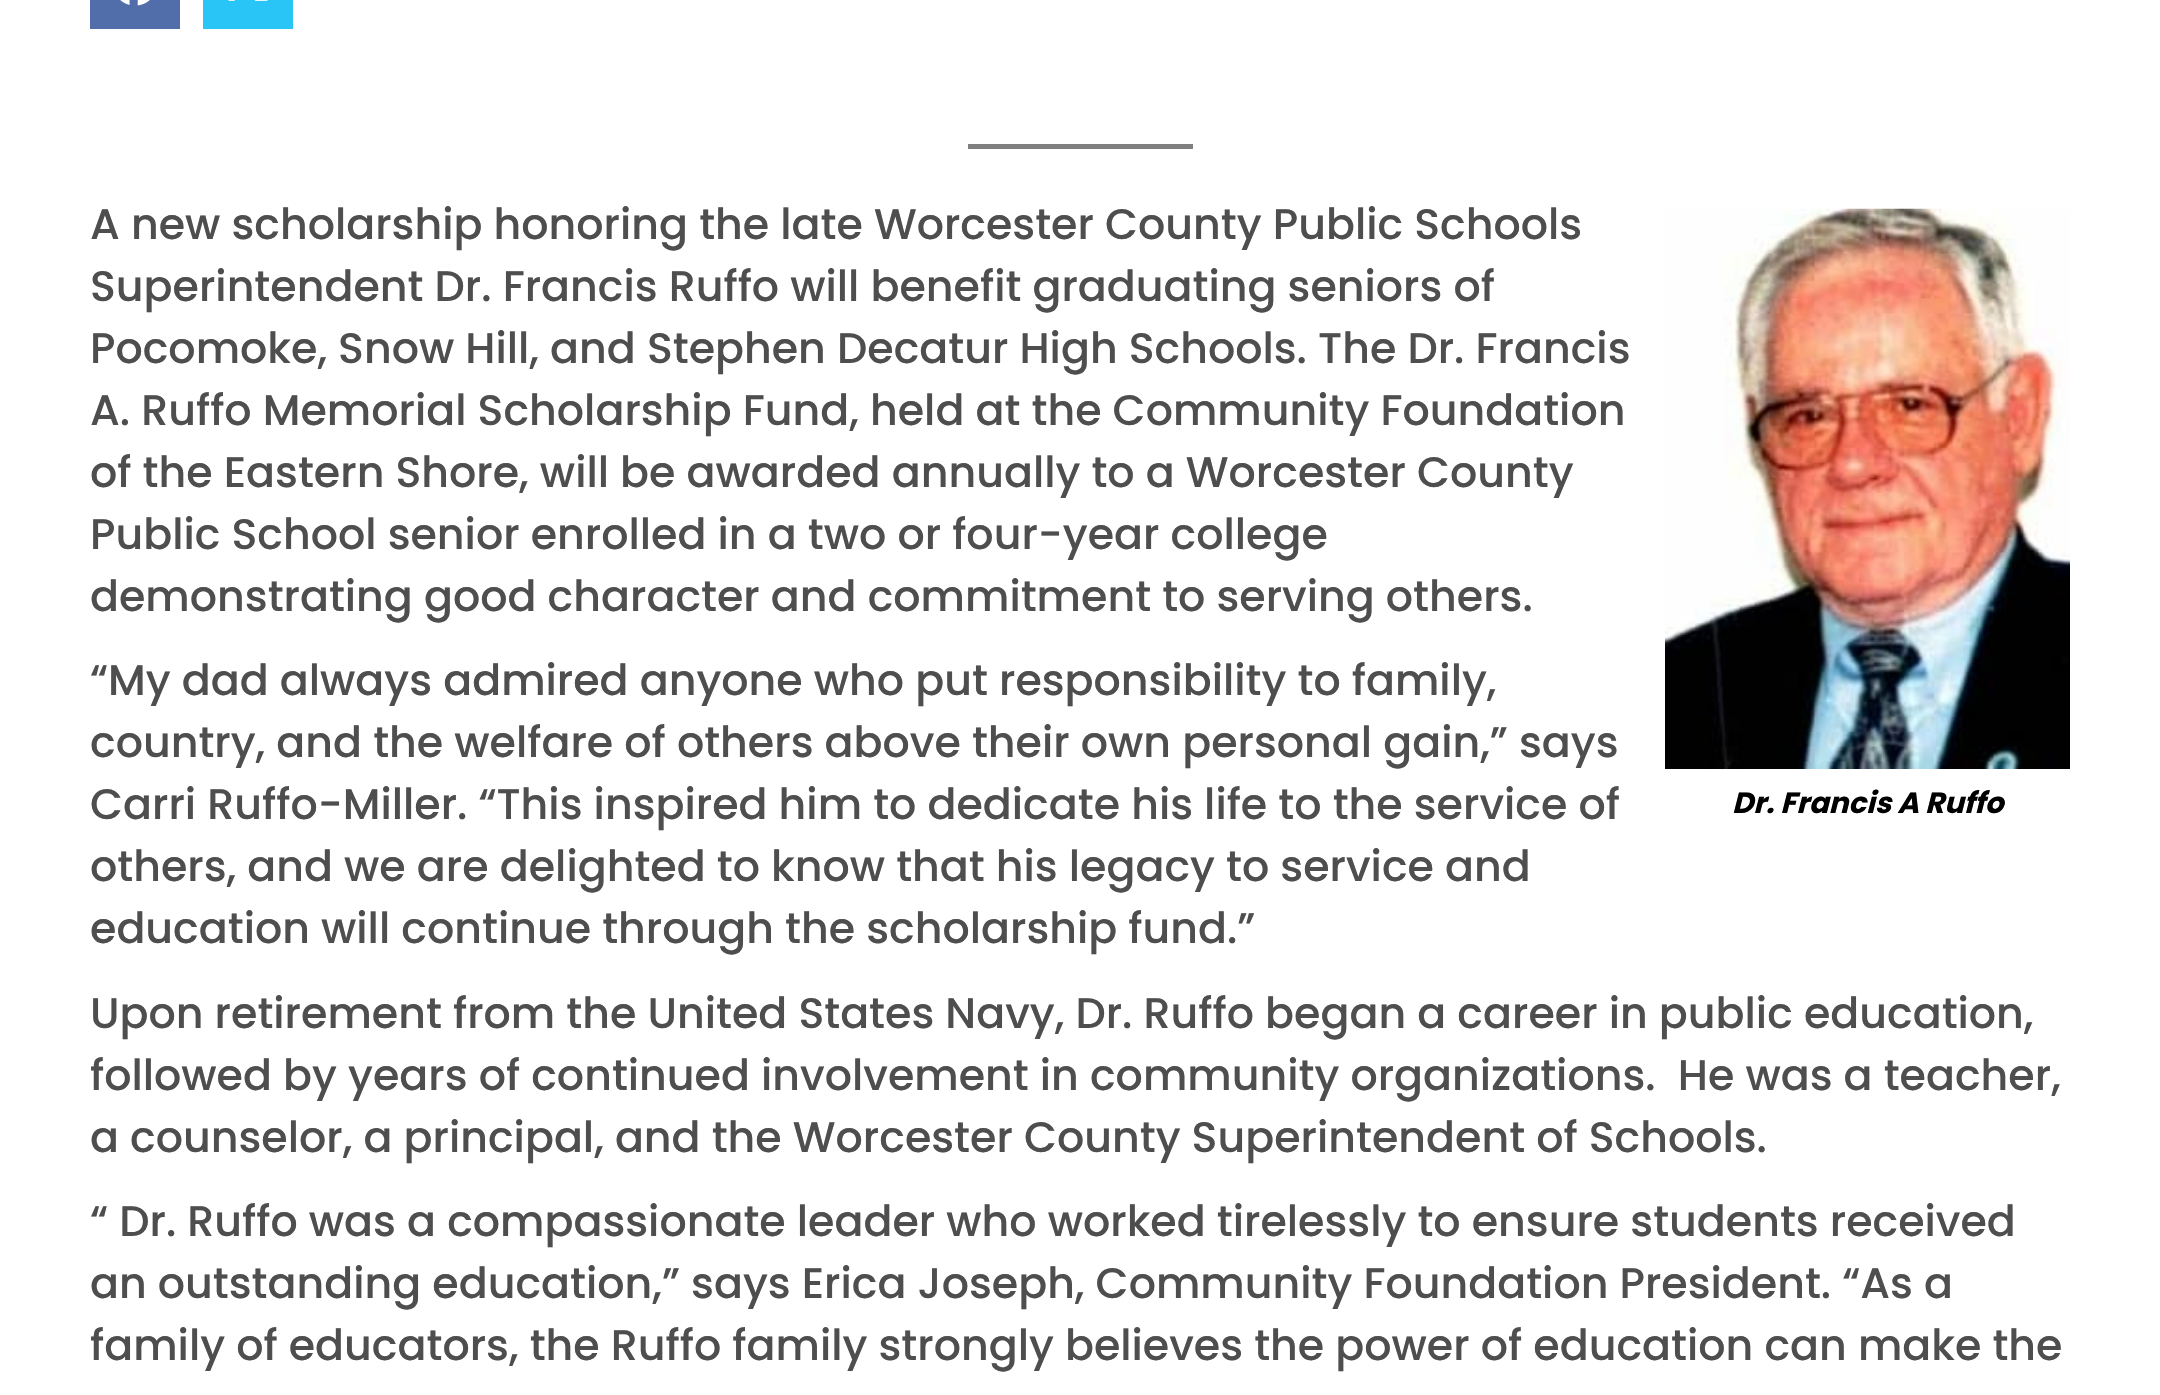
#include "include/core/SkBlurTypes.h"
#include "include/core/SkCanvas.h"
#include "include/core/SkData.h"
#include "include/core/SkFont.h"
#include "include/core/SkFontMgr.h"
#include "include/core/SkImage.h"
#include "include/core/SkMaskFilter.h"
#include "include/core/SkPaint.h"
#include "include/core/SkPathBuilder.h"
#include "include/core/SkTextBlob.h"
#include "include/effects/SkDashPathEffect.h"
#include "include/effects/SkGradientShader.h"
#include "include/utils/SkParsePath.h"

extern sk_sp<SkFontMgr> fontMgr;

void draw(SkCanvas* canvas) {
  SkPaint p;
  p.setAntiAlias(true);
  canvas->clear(SK_ColorWHITE);
  p.setColor(SkColorSetRGB(81, 110, 171));
  canvas->drawRect(SkRect::MakeLTRB(90, 0, 180, 29), p);
  canvas->drawImageRect(SkImages::DeferredFromEncodedData(SkData::MakeFromFileName("images/1.png")), SkRect::MakeLTRB(120, 0, 150, 6), SkSamplingOptions());
  p.setColor(SkColorSetRGB(41, 197, 246));
  canvas->drawRect(SkRect::MakeLTRB(203, 0, 293, 29), p);
  canvas->drawImageRect(SkImages::DeferredFromEncodedData(SkData::MakeFromFileName("images/2.png")), SkRect::MakeLTRB(228, 0, 268, 1), SkSamplingOptions());
  p.setColor(SkColorSetRGB(128, 128, 128));
  canvas->drawRect(SkRect::MakeLTRB(968, 144, 1193, 149), p);
  canvas->drawImageRect(SkImages::DeferredFromEncodedData(SkData::MakeFromFileName("images/3.png")), SkRect::MakeLTRB(1665, 208, 2070, 769), SkSamplingOptions());
  SkFont font1(fontMgr->matchFamilyStyle("Poppins", SkFontStyle(500, SkFontStyle::kNormal_Width, SkFontStyle::kUpright_Slant)), 42.75f);
  font1.setSubpixel(true);
  p.setColor(SkColorSetRGB(78, 78, 78));
  canvas->drawString("A new scholarship honoring the late Worcester County Public Schools", 90, 239, font1, p);
  canvas->drawString("Superintendent Dr. Francis Ruffo will benefit graduating seniors of", 90, 301, font1, p);
  canvas->drawString("Pocomoke, Snow Hill, and Stephen Decatur High Schools. The Dr. Francis", 90, 363, font1, p);
  canvas->drawString("A. Ruffo Memorial Scholarship Fund, held at the Community Foundation", 90, 425, font1, p);
  canvas->drawString("of the Eastern Shore, will be awarded annually to a Worcester County", 90, 487, font1, p);
  canvas->drawString("Public School senior enrolled in a two or four-year college", 90, 549, font1, p);
  canvas->drawString("demonstrating good character and commitment to serving others.", 90, 611, font1, p);
  canvas->drawString("“My dad always admired anyone who put responsibility to family,", 90, 695, font1, p);
  canvas->drawString("country, and the welfare of others above their own personal gain,” says", 90, 757, font1, p);
  canvas->drawString("Carri Ruffo-Miller. “This inspired him to dedicate his life to the service of", 90, 819, font1, p);
  canvas->drawString("others, and we are delighted to know that his legacy to service and", 90, 881, font1, p);
  canvas->drawString("education will continue through the scholarship fund.”", 90, 943, font1, p);
  SkFont font2(fontMgr->matchFamilyStyle("Poppins", SkFontStyle::BoldItalic()), 29.25f);
  font2.setSubpixel(true);
  p.setColor(SK_ColorBLACK);
  canvas->drawString("Dr. Francis A Ruffo", 1732, 813, font2, p);
  p.setColor(SkColorSetRGB(78, 78, 78));
  canvas->drawString("Upon retirement from the United States Navy, Dr. Ruffo began a career in public education,", 90, 1028, font1, p);
  canvas->drawString("followed by years of continued involvement in community organizations.  He was a teacher,", 90, 1090, font1, p);
  canvas->drawString("a counselor, a principal, and the Worcester County Superintendent of Schools.", 90, 1152, font1, p);
  canvas->drawString("“ Dr. Ruffo was a compassionate leader who worked tirelessly to ensure students received", 90, 1236, font1, p);
  canvas->drawString("an outstanding education,” says Erica Joseph, Community Foundation President. “As a", 90, 1298, font1, p);
  canvas->drawString("family of educators, the Ruffo family strongly believes the power of education can make the", 90, 1360, font1, p);
}
